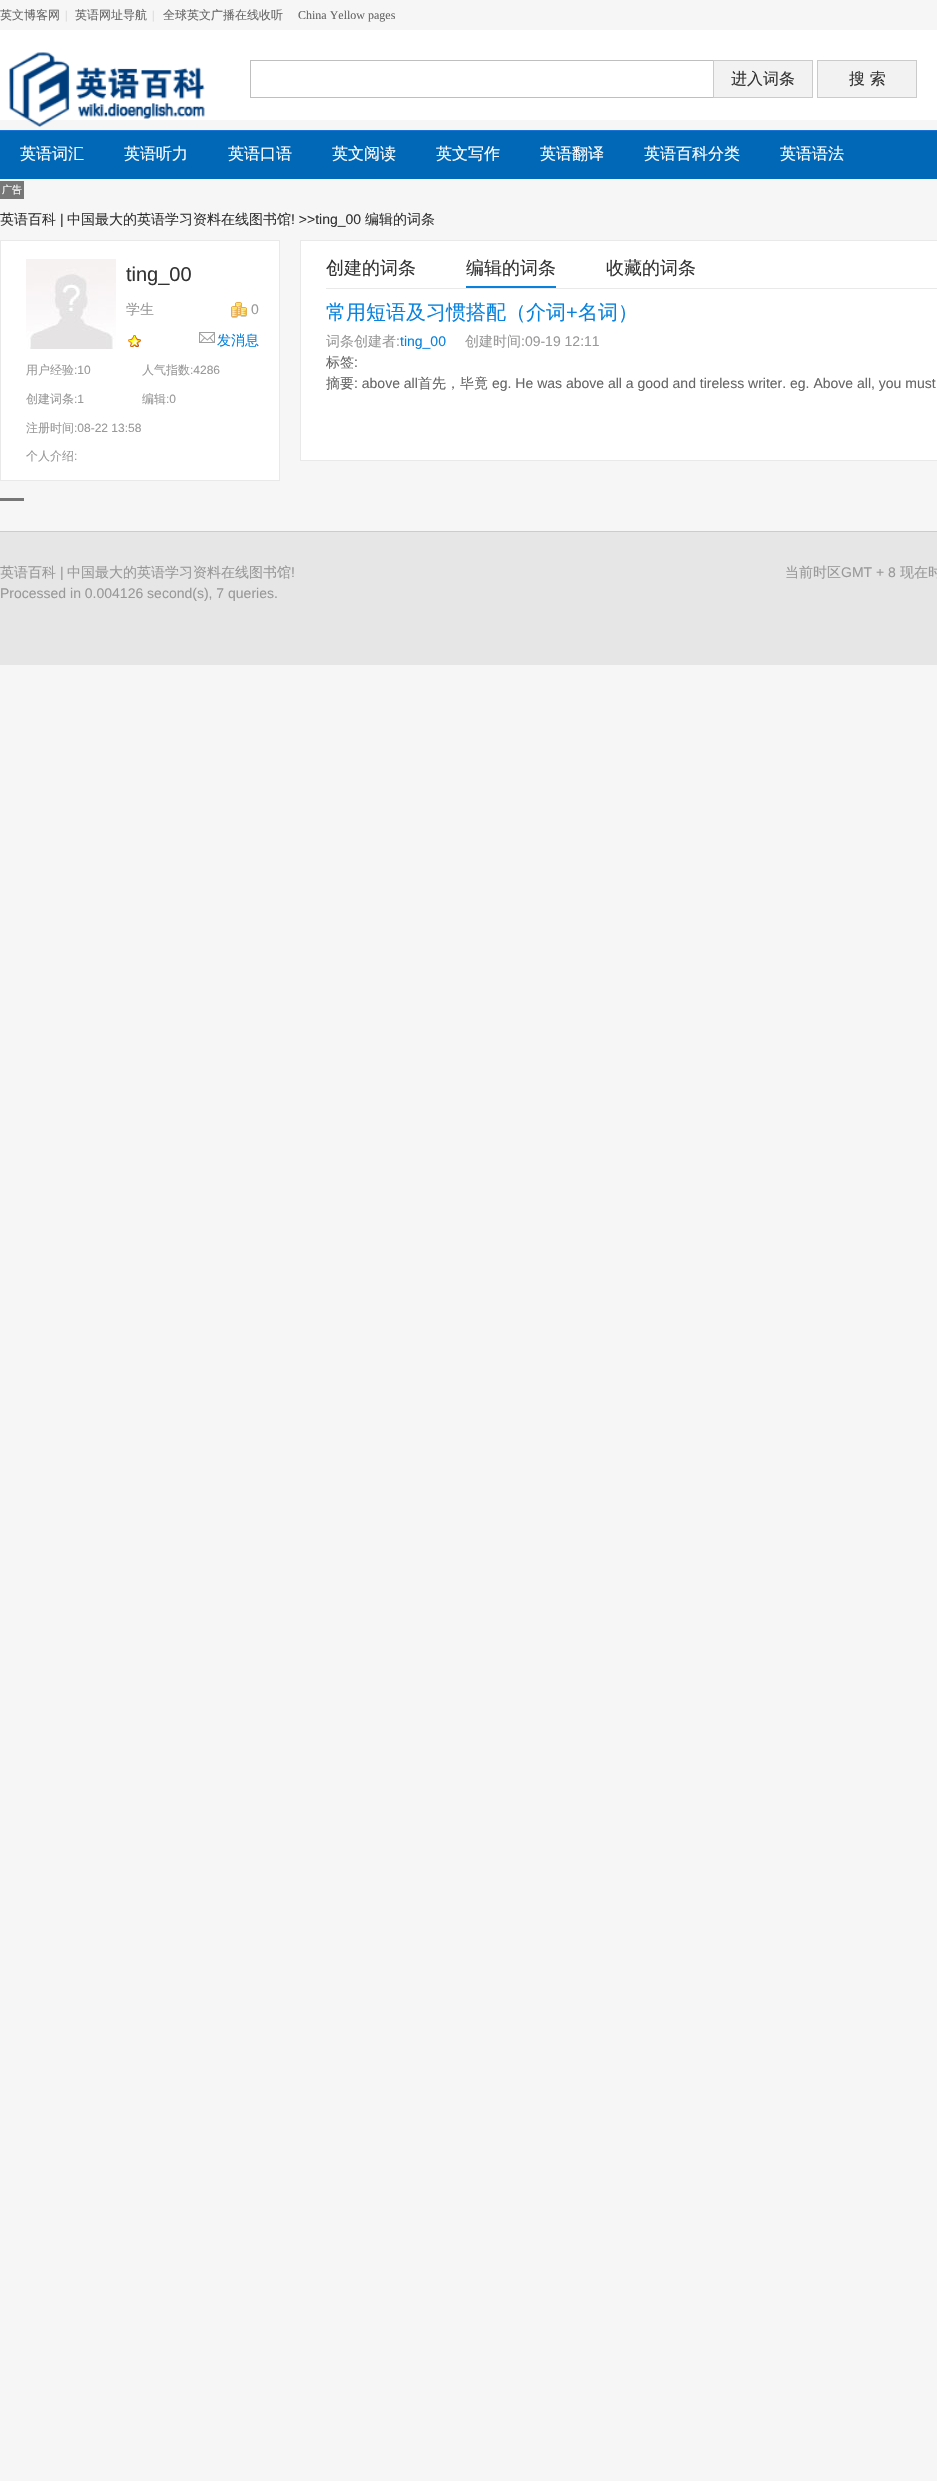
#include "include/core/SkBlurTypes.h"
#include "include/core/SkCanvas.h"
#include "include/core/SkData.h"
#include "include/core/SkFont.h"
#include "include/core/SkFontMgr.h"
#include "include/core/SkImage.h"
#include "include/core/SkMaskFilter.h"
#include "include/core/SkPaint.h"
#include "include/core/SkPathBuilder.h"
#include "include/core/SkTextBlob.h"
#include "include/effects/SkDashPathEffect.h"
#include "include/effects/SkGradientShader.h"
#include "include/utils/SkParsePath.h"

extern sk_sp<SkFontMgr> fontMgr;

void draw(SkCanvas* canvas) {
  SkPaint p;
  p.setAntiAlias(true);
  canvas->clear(SkColorSetRGB(246, 246, 246));
  p.setColor(SK_ColorWHITE);
  canvas->drawRect(SkRect::MakeLTRB(0, 30, 937, 120), p);
  canvas->drawImageRect(SkImages::DeferredFromEncodedData(SkData::MakeFromFileName("images/1.png")), SkRect::MakeLTRB(9, 52, 205, 127), SkSamplingOptions());
  p.setStyle(SkPaint::kStroke_Style);
  p.setStrokeWidth(1);
  p.setColor(SkColorSetRGB(191, 191, 191));
  canvas->drawRect(SkRect::MakeLTRB(250.5f, 60.5f, 713.5f, 97.5f), p);
  p.setStyle(SkPaint::kFill_Style);
  p.setColor(SkColorSetRGB(242, 242, 242));
  canvas->drawRect(SkRect::MakeLTRB(713.5f, 60.5f, 812.5f, 97.5f), p);
  p.setStyle(SkPaint::kStroke_Style);
  p.setColor(SkColorSetRGB(203, 203, 203));
  canvas->drawRect(SkRect::MakeLTRB(713.5f, 60.5f, 812.5f, 97.5f), p);
  p.setStyle(SkPaint::kFill_Style);
  p.setColor(SkColorSetRGB(242, 242, 242));
  canvas->drawRect(SkRect::MakeLTRB(817.5f, 60.5f, 916.5f, 97.5f), p);
  p.setStyle(SkPaint::kStroke_Style);
  p.setColor(SkColorSetRGB(203, 203, 203));
  canvas->drawRect(SkRect::MakeLTRB(817.5f, 60.5f, 916.5f, 97.5f), p);
  p.setStyle(SkPaint::kFill_Style);
  p.setColor(SkColorSetRGB(0, 104, 183));
  canvas->drawRect(SkRect::MakeLTRB(0, 131, 937, 179), p);
  p.setColor(SkColorSetRGB(28, 115, 214));
  canvas->drawRect(SkRect::MakeLTRB(0, 130, 937, 131), p);
  p.setColor(SkColorSetRGB(119, 119, 119));
  canvas->drawRect(SkRect::MakeLTRB(0, 181, 24, 199), p);
  p.setColor(SK_ColorWHITE);
  canvas->drawRect(SkRect::MakeLTRB(0.5f, 240.5f, 279.5f, 480.5f), p);
  p.setStyle(SkPaint::kStroke_Style);
  p.setColor(SkColorSetRGB(233, 233, 233));
  canvas->drawRect(SkRect::MakeLTRB(0.5f, 240.5f, 279.5f, 480.5f), p);
  canvas->drawImageRect(SkImages::DeferredFromEncodedData(SkData::MakeFromFileName("images/2.png")), SkRect::MakeLTRB(26, 259, 116, 349), SkSamplingOptions());
  canvas->drawImageRect(SkImages::DeferredFromEncodedData(SkData::MakeFromFileName("images/3.png")), SkRect::MakeLTRB(231, 302, 247, 318), SkSamplingOptions());
  canvas->drawImageRect(SkImages::DeferredFromEncodedData(SkData::MakeFromFileName("images/4.png")), SkRect::MakeLTRB(128, 335, 141, 347), SkSamplingOptions());
  canvas->drawImageRect(SkImages::DeferredFromEncodedData(SkData::MakeFromFileName("images/5.png")), SkRect::MakeLTRB(199, 332, 215, 343), SkSamplingOptions());
  p.setStyle(SkPaint::kFill_Style);
  p.setColor(SK_ColorWHITE);
  canvas->drawRect(SkRect::MakeLTRB(300.5f, 240.5f, 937.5f, 460.5f), p);
  p.setStyle(SkPaint::kStroke_Style);
  p.setColor(SkColorSetRGB(233, 233, 233));
  canvas->drawRect(SkRect::MakeLTRB(300.5f, 240.5f, 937.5f, 460.5f), p);
  p.setStyle(SkPaint::kFill_Style);
  canvas->drawRect(SkRect::MakeLTRB(326, 288, 937, 289), p);
  p.setColor(SkColorSetRGB(8, 130, 222));
  canvas->drawRect(SkRect::MakeLTRB(466, 286, 556, 288), p);
  p.setColor(SkColorSetRGB(119, 119, 119));
  canvas->drawRect(SkRect::MakeLTRB(0, 498, 24, 501), p);
  p.setColor(SkColorSetRGB(230, 230, 230));
  canvas->drawRect(SkRect::MakeLTRB(0, 532, 937, 665), p);
  p.setColor(SkColorSetRGB(204, 204, 204));
  canvas->drawRect(SkRect::MakeLTRB(0, 531, 937, 532), p);
  SkFont font1(fontMgr->matchFamilyStyle("WenQuanYi Zen Hei", SkFontStyle(500, SkFontStyle::kNormal_Width, SkFontStyle::kUpright_Slant)), 12);
  font1.setSubpixel(true);
  p.setColor(SkColorSetRGB(102, 102, 102));
  canvas->drawString("英文博客网", 0, 19, font1, p);
  SkFont font2(fontMgr->matchFamilyStyle("Liberation Serif", SkFontStyle::Normal()), 12);
  font2.setSubpixel(true);
  p.setColor(SkColorSetRGB(212, 212, 212));
  canvas->drawString("|", 65, 19, font2, p);
  p.setColor(SkColorSetRGB(102, 102, 102));
  canvas->drawString("英语网址导航", 75, 19, font1, p);
  p.setColor(SkColorSetRGB(212, 212, 212));
  canvas->drawString("|", 152, 19, font2, p);
  p.setColor(SkColorSetRGB(102, 102, 102));
  canvas->drawString("全球英文广播在线收听", 163, 19, font1, p);
  canvas->drawString("China Yellow pages", 298, 19, font2, p);
  SkFont font3(fontMgr->matchFamilyStyle("WenQuanYi Zen Hei", SkFontStyle(500, SkFontStyle::kNormal_Width, SkFontStyle::kUpright_Slant)), 16);
  font3.setSubpixel(true);
  p.setColor(SkColorSetRGB(51, 51, 51));
  canvas->drawString("进入词条", 731, 84, font3, p);
  canvas->drawString("搜 索", 849, 84, font3, p);
  p.setColor(SK_ColorWHITE);
  canvas->drawString("英语词汇", 20, 159, font3, p);
  canvas->drawString("英语听力", 124, 159, font3, p);
  canvas->drawString("英语口语", 228, 159, font3, p);
  canvas->drawString("英文阅读", 332, 159, font3, p);
  canvas->drawString("英文写作", 436, 159, font3, p);
  canvas->drawString("英语翻译", 540, 159, font3, p);
  canvas->drawString("英语百科分类", 644, 159, font3, p);
  canvas->drawString("英语语法", 780, 159, font3, p);
  SkFont font4(fontMgr->matchFamilyStyle("WenQuanYi Zen Hei", SkFontStyle(500, SkFontStyle::kNormal_Width, SkFontStyle::kUpright_Slant)), 10);
  font4.setSubpixel(true);
  canvas->drawString("广告", 2, 193, font4, p);
  SkFont font5(fontMgr->matchFamilyStyle("WenQuanYi Zen Hei", SkFontStyle(500, SkFontStyle::kNormal_Width, SkFontStyle::kUpright_Slant)), 14);
  font5.setSubpixel(true);
  p.setColor(SkColorSetRGB(51, 51, 51));
  canvas->drawString("英语百科", 0, 224, font5, p);
  SkFont font6(fontMgr->matchFamilyStyle("Liberation Sans", SkFontStyle::Normal()), 14);
  font6.setSubpixel(true);
  canvas->drawString("|", 60, 224, font6, p);
  canvas->drawString("中国最大的英语学习资料在线图书馆", 67, 224, font5, p);
  canvas->drawString("! >>ting_00", 291, 224, font6, p);
  canvas->drawString("编辑的词条", 365, 224, font5, p);
  SkFont font7(fontMgr->matchFamilyStyle("Liberation Sans", SkFontStyle::Normal()), 20);
  font7.setSubpixel(true);
  canvas->drawString("ting_00", 126, 281, font7, p);
  p.setColor(SkColorSetRGB(153, 153, 153));
  canvas->drawString("学生", 126, 314, font5, p);
  canvas->drawString("0", 251, 314, font6, p);
  p.setColor(SkColorSetRGB(8, 130, 222));
  canvas->drawString("发消息", 217, 345, font5, p);
  p.setColor(SkColorSetRGB(153, 153, 153));
  canvas->drawString("用户经验", 26, 374, font1, p);
  SkFont font8(fontMgr->matchFamilyStyle("Liberation Sans", SkFontStyle::Normal()), 12);
  font8.setSubpixel(true);
  canvas->drawString(":10", 74, 374, font8, p);
  canvas->drawString("人气指数", 142, 374, font1, p);
  canvas->drawString(":4286", 190, 374, font8, p);
  canvas->drawString("创建词条", 26, 403, font1, p);
  canvas->drawString(":1", 74, 403, font8, p);
  canvas->drawString("编辑", 142, 403, font1, p);
  canvas->drawString(":0", 166, 403, font8, p);
  canvas->drawString("注册时间", 26, 432, font1, p);
  canvas->drawString(":08-22 13:58", 74, 432, font8, p);
  canvas->drawString("个人介绍", 26, 460, font1, p);
  canvas->drawString(":", 74, 460, font8, p);
  SkFont font9(fontMgr->matchFamilyStyle("WenQuanYi Zen Hei", SkFontStyle(500, SkFontStyle::kNormal_Width, SkFontStyle::kUpright_Slant)), 18);
  font9.setSubpixel(true);
  p.setColor(SkColorSetRGB(51, 51, 51));
  canvas->drawString("创建的词条", 326, 274, font9, p);
  canvas->drawString("编辑的词条", 466, 274, font9, p);
  canvas->drawString("收藏的词条", 606, 274, font9, p);
  SkFont font10(fontMgr->matchFamilyStyle("WenQuanYi Zen Hei", SkFontStyle(500, SkFontStyle::kNormal_Width, SkFontStyle::kUpright_Slant)), 20);
  font10.setSubpixel(true);
  p.setColor(SkColorSetRGB(8, 130, 222));
  canvas->drawString("常用短语及习惯搭配（介词", 326, 319, font10, p);
  canvas->drawString("+", 566, 319, font7, p);
  canvas->drawString("名词）", 578, 319, font10, p);
  p.setColor(SkColorSetRGB(153, 153, 153));
  canvas->drawString("词条创建者", 326, 346, font5, p);
  canvas->drawString(":", 396, 346, font6, p);
  p.setColor(SkColorSetRGB(8, 130, 222));
  canvas->drawString("ting_00", 400, 346, font6, p);
  p.setColor(SkColorSetRGB(153, 153, 153));
  canvas->drawString("创建时间", 465, 346, font5, p);
  canvas->drawString(":09-19 12:11", 521, 346, font6, p);
  p.setColor(SkColorSetRGB(102, 102, 102));
  canvas->drawString("标签", 326, 367, font5, p);
  canvas->drawString(":", 354, 367, font6, p);
  canvas->drawString("摘要", 326, 388, font5, p);
  canvas->drawString(": above all", 354, 388, font6, p);
  canvas->drawString("首先，毕竟", 418, 388, font5, p);
  canvas->drawString("eg. He was above all a good and tireless writer. eg. Above all, you must", 492, 388, font6, p);
  p.setColor(SkColorSetRGB(153, 153, 153));
  canvas->drawString("英语百科", 0, 577, font5, p);
  canvas->drawString("|", 60, 577, font6, p);
  canvas->drawString("中国最大的英语学习资料在线图书馆", 67, 577, font5, p);
  canvas->drawString("!", 291, 577, font6, p);
  canvas->drawString("Processed in 0.004126 second(s), 7 queries.", 0, 598, font6, p);
  canvas->drawString("当前时区", 785, 577, font5, p);
  canvas->drawString("GMT + 8", 841, 577, font6, p);
  canvas->drawString("现在时", 900, 577, font5, p);
}
